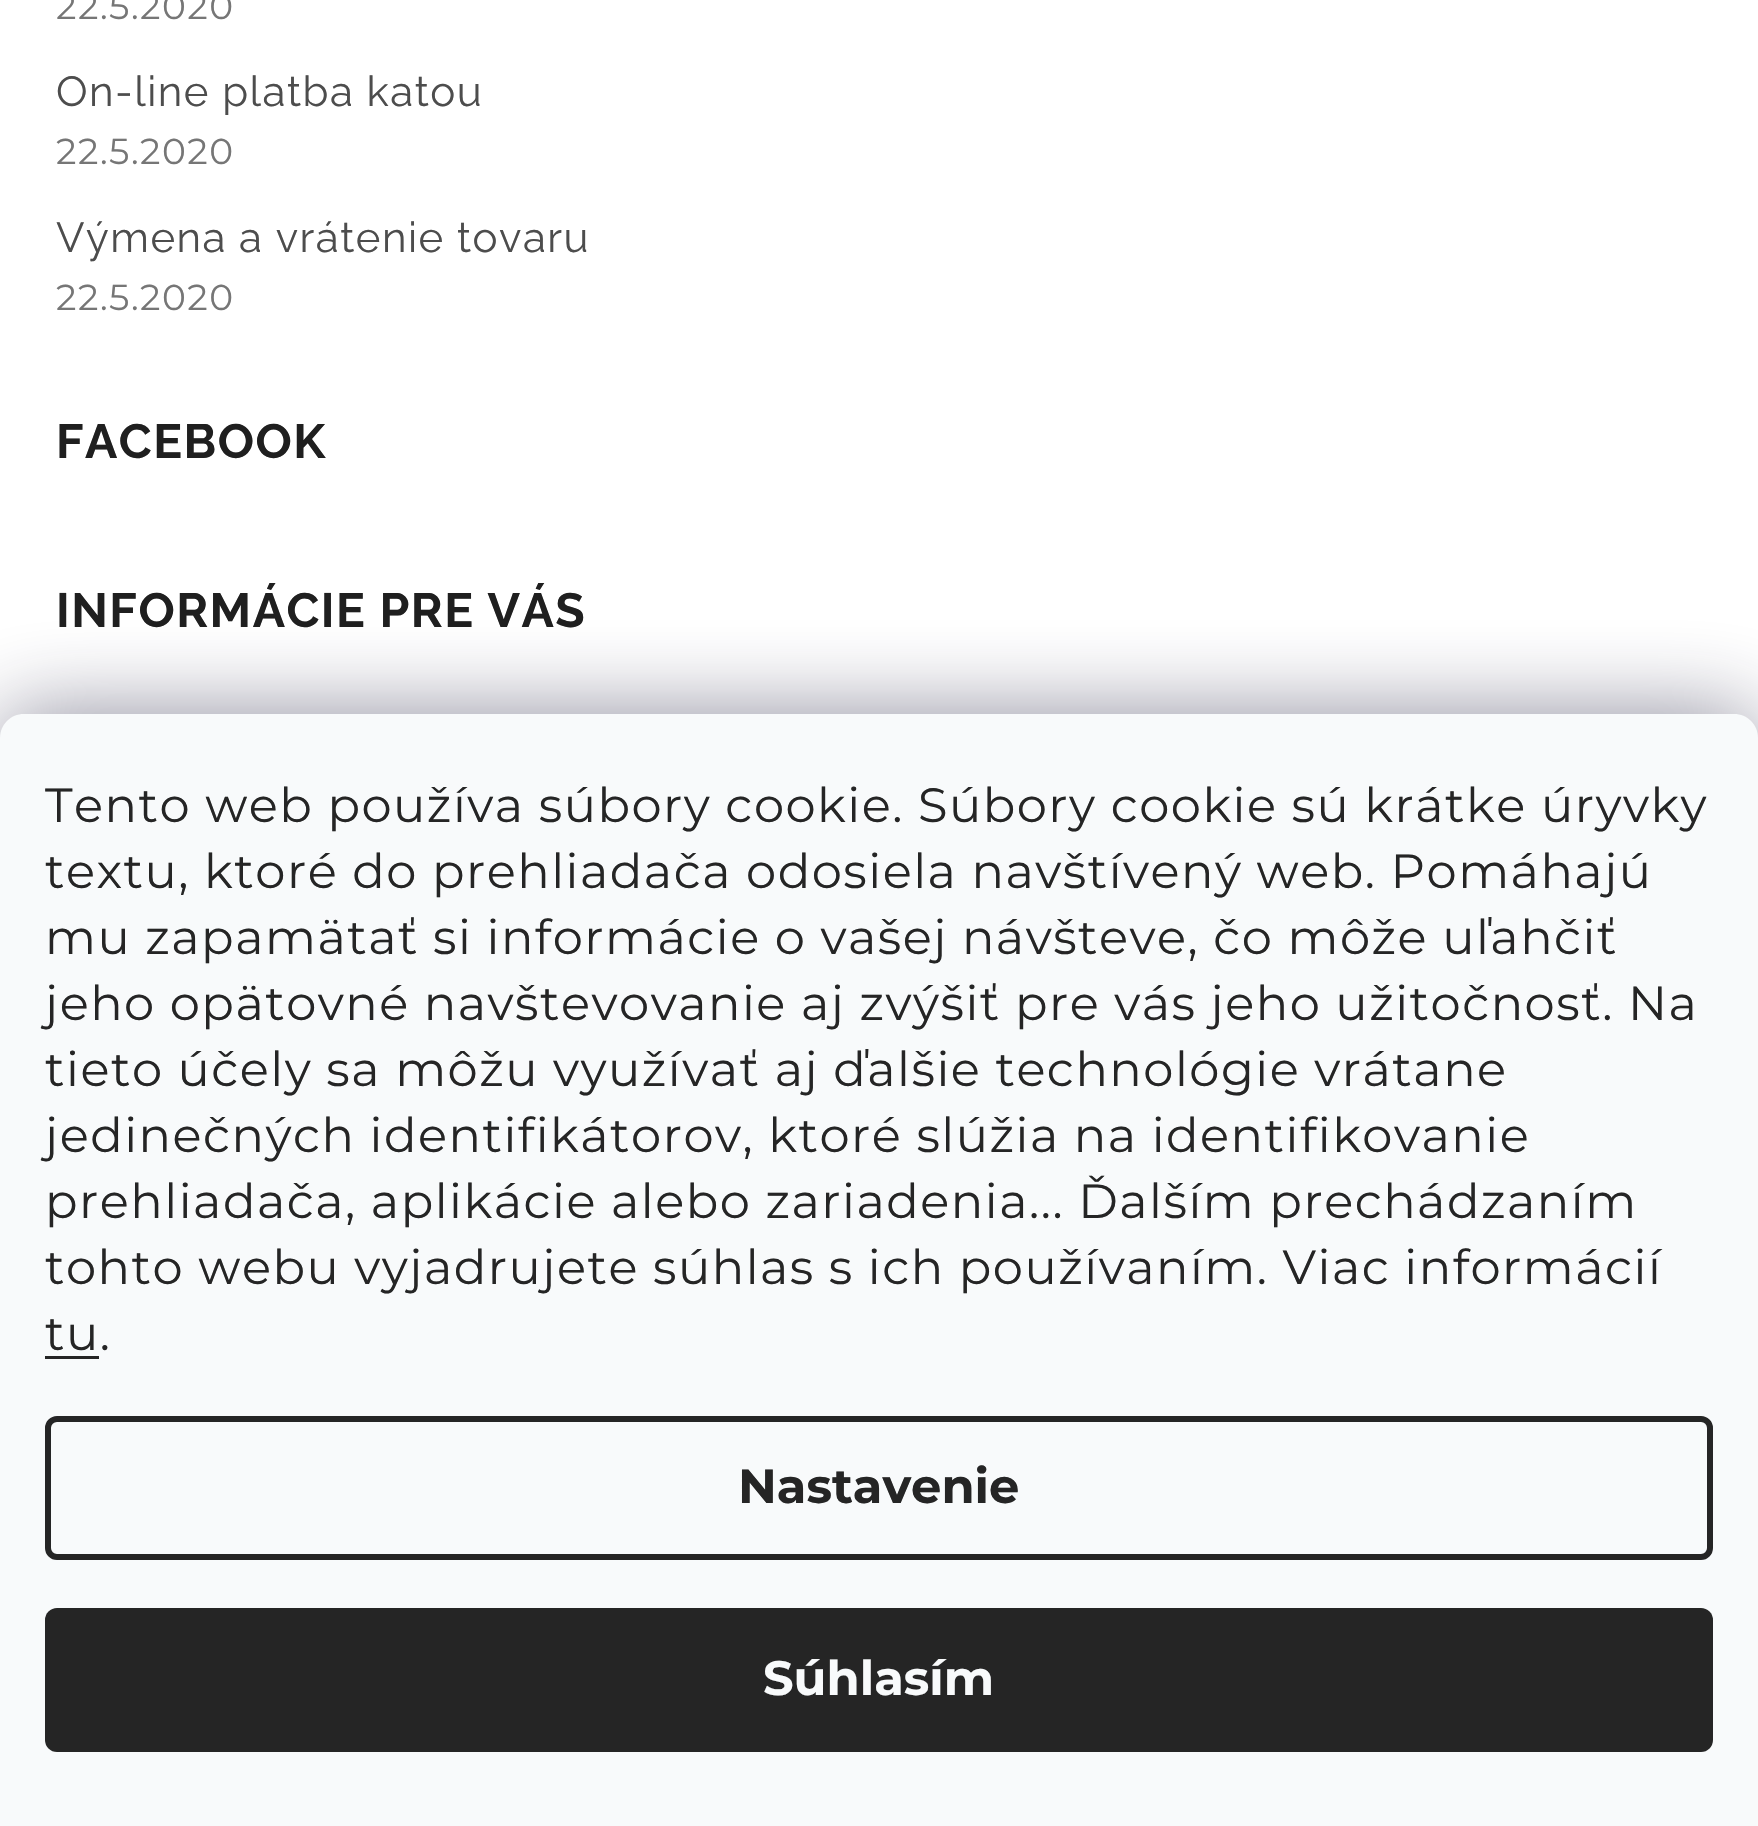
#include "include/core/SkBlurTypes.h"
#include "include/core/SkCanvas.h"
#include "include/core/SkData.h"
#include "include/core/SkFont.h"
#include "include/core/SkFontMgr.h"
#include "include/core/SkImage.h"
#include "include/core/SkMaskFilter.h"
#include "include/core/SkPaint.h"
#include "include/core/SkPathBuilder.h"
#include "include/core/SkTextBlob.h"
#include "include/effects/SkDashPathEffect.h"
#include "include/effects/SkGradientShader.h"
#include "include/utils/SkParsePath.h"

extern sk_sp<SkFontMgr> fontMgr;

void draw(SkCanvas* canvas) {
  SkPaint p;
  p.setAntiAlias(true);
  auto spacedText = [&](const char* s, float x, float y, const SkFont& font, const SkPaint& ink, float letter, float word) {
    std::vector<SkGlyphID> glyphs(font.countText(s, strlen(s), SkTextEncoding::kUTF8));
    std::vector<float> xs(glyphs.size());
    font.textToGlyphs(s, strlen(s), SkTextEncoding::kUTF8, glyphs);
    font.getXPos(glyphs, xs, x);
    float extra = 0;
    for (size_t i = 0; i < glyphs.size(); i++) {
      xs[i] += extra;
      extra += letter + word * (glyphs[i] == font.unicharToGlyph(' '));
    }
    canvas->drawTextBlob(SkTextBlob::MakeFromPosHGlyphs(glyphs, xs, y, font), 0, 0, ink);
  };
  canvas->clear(SK_ColorWHITE);
  p.setColor(SkColorSetARGB(128, 27, 25, 57));
  p.setMaskFilter(SkMaskFilter::MakeBlur(kNormal_SkBlurStyle, 45));
  canvas->drawRoundRect(SkRect::MakeLTRB(0, 714, 1758, 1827), 24, 24, p);
  p.setMaskFilter(nullptr);
  p.setColor(SkColorSetRGB(248, 250, 251));
  canvas->drawPath(SkPathBuilder().moveTo(24, 714).lineTo(1734, 714).cubicTo(1747.5f, 714, 1758, 724.5f, 1758, 738).lineTo(1758, 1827).lineTo(0, 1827).lineTo(0, 738).cubicTo(0, 724.5f, 10.5f, 714, 24, 714).close().detach(), p);
  p.setColor(SkColorSetRGB(37, 37, 37));
  canvas->drawRect(SkRect::MakeLTRB(45, 1356, 99, 1359), p);
  p.setStyle(SkPaint::kStroke_Style);
  p.setStrokeWidth(6);
  canvas->drawRoundRect(SkRect::MakeLTRB(48, 1419, 1710, 1557), 9, 9, p);
  p.setStyle(SkPaint::kFill_Style);
  canvas->drawRoundRect(SkRect::MakeLTRB(45, 1608, 1713, 1752), 12, 12, p);
  SkFont font1(fontMgr->matchFamilyStyle("Montserrat", SkFontStyle::Normal()), 36);
  font1.setSubpixel(true);
  p.setColor(SkColorSetRGB(118, 118, 118));
  spacedText("22.5.2020", 56, 19, font1, p, 1.5f, 0);
  SkFont font2(fontMgr->matchFamilyStyle("Raleway", SkFontStyle::Normal()), 42);
  font2.setSubpixel(true);
  p.setColor(SkColorSetRGB(77, 77, 77));
  spacedText("On-line platba katou", 56, 106, font2, p, 1.5f, 0);
  p.setColor(SkColorSetRGB(118, 118, 118));
  spacedText("22.5.2020", 56, 164, font1, p, 1.5f, 0);
  p.setColor(SkColorSetRGB(77, 77, 77));
  spacedText("Výmena a vrátenie tovaru", 56, 252, font2, p, 1.5f, 0);
  p.setColor(SkColorSetRGB(118, 118, 118));
  spacedText("22.5.2020", 56, 310, font1, p, 1.5f, 0);
  SkFont font3(fontMgr->matchFamilyStyle("Raleway", SkFontStyle::Bold()), 48);
  font3.setSubpixel(true);
  p.setColor(SkColorSetRGB(31, 31, 31));
  spacedText("FACEBOOK", 56, 458, font3, p, 1.5f, 0);
  spacedText("INFORMÁCIE PRE VÁS", 56, 627, font3, p, 1.5f, 0);
  SkFont font4(fontMgr->matchFamilyStyle("Montserrat", SkFontStyle::Normal()), 48);
  font4.setSubpixel(true);
  p.setColor(SkColorSetRGB(37, 37, 37));
  spacedText("Tento web používa súbory cookie. Súbory cookie sú krátke úryvky", 45, 822, font4, p, 1.5f, 0);
  spacedText("textu, ktoré do prehliadača odosiela navštívený web. Pomáhajú", 45, 888, font4, p, 1.5f, 0);
  spacedText("mu zapamätať si informácie o vašej návšteve, čo môže uľahčiť", 45, 954, font4, p, 1.5f, 0);
  spacedText("jeho opätovné navštevovanie aj zvýšiť pre vás jeho užitočnosť. Na", 45, 1020, font4, p, 1.5f, 0);
  spacedText("tieto účely sa môžu využívať aj ďalšie technológie vrátane", 45, 1086, font4, p, 1.5f, 0);
  spacedText("jedinečných identifikátorov, ktoré slúžia na identifikovanie", 45, 1152, font4, p, 1.5f, 0);
  spacedText("prehliadača, aplikácie alebo zariadenia... Ďalším prechádzaním", 45, 1218, font4, p, 1.5f, 0);
  spacedText("tohto webu vyjadrujete súhlas s ich používaním. Viac informácií", 45, 1284, font4, p, 1.5f, 0);
  spacedText("tu.", 45, 1350, font4, p, 1.5f, 0);
  SkFont font5(fontMgr->matchFamilyStyle("Montserrat", SkFontStyle::Bold()), 48);
  font5.setSubpixel(true);
  canvas->drawString("Nastavenie", 738, 1503, font5, p);
  p.setColor(SkColorSetRGB(248, 250, 251));
  canvas->drawString("Súhlasím", 763, 1695, font5, p);
}
